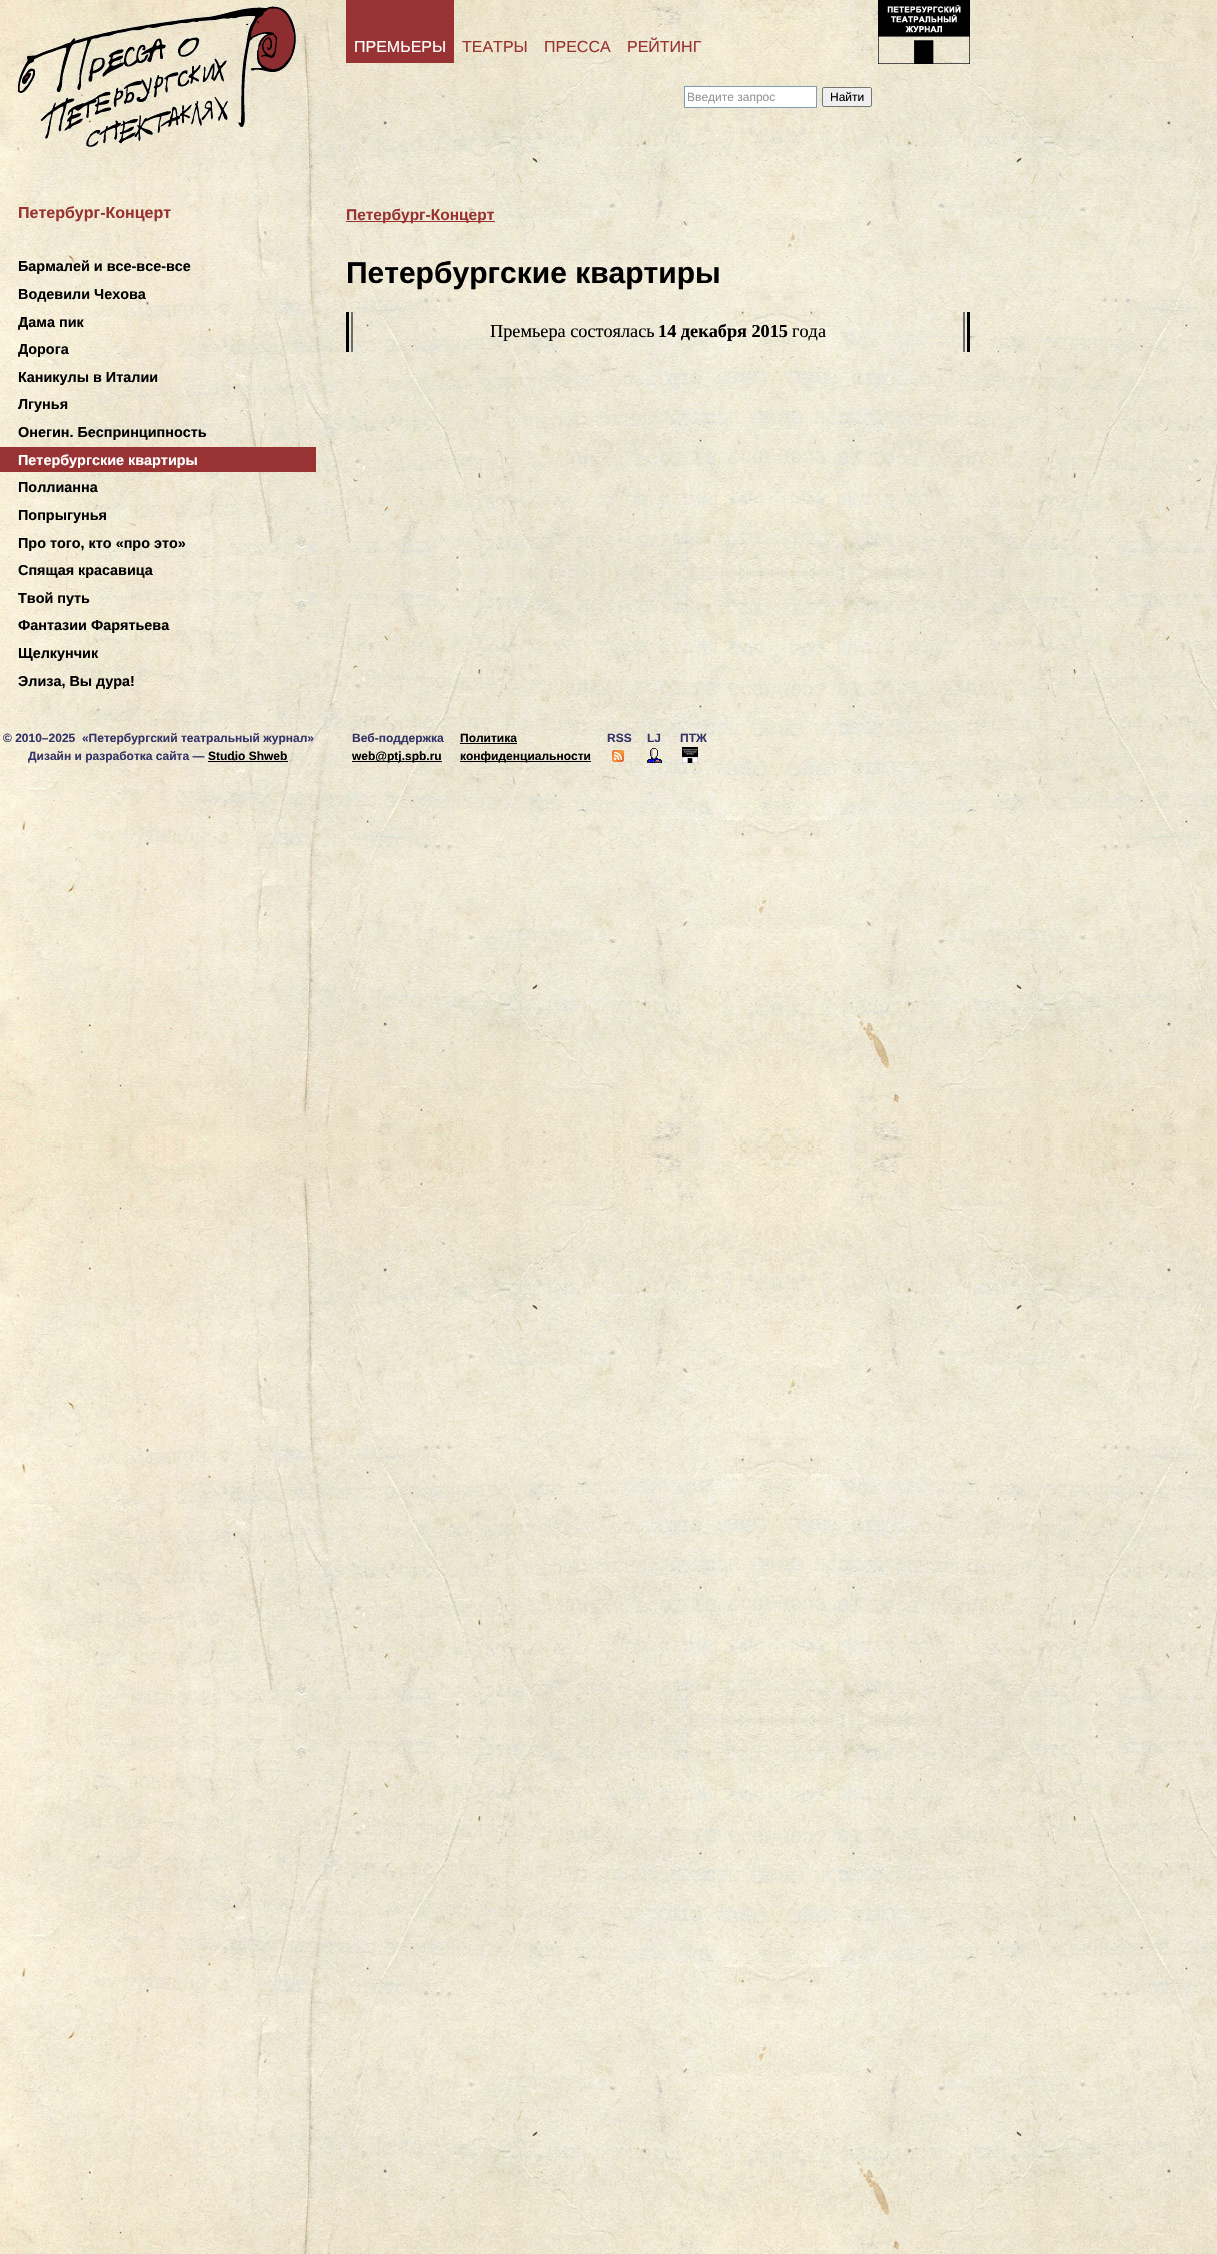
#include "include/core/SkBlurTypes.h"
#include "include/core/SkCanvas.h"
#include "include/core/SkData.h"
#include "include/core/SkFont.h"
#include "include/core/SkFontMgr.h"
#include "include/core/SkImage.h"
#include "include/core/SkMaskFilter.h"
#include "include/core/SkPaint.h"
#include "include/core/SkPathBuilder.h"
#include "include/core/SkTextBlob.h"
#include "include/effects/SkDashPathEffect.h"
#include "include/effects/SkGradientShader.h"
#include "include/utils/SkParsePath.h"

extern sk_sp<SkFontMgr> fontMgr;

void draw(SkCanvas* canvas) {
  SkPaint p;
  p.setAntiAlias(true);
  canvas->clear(SK_ColorWHITE);
  canvas->drawImageRect(SkImages::DeferredFromEncodedData(SkData::MakeFromFileName("images/1.png")), SkRect::MakeLTRB(0, 0, 1217, 2254), SkSamplingOptions());
  canvas->drawImageRect(SkImages::DeferredFromEncodedData(SkData::MakeFromFileName("images/2.png")), SkRect::MakeLTRB(18, 6, 296, 147), SkSamplingOptions());
  p.setColor(SkColorSetRGB(153, 51, 51));
  canvas->drawRect(SkRect::MakeLTRB(346, 0, 454, 63), p);
  canvas->drawImageRect(SkImages::DeferredFromEncodedData(SkData::MakeFromFileName("images/3.png")), SkRect::MakeLTRB(878, 0, 970, 64), SkSamplingOptions());
  p.setColor(SK_ColorWHITE);
  canvas->drawRect(SkRect::MakeLTRB(684.5f, 86.5f, 816.5f, 107.5f), p);
  p.setStyle(SkPaint::kStroke_Style);
  p.setStrokeWidth(1);
  p.setColor(SkColorSetRGB(127, 157, 185));
  canvas->drawRect(SkRect::MakeLTRB(684.5f, 86.5f, 816.5f, 107.5f), p);
  p.setStyle(SkPaint::kFill_Style);
  p.setColor(SkColorSetRGB(239, 239, 239));
  canvas->drawRoundRect(SkRect::MakeLTRB(822.5f, 87.5f, 871.5f, 106.5f), 1.5f, 1.5f, p);
  p.setStyle(SkPaint::kStroke_Style);
  p.setColor(SkColorSetRGB(118, 118, 118));
  canvas->drawRoundRect(SkRect::MakeLTRB(822.5f, 87.5f, 871.5f, 106.5f), 1.5f, 1.5f, p);
  p.setStyle(SkPaint::kFill_Style);
  p.setColor(SkColorSetRGB(153, 51, 51));
  canvas->drawRect(SkRect::MakeLTRB(0, 447, 316, 472), p);
  canvas->drawRect(SkRect::MakeLTRB(346, 221, 495, 222), p);
  canvas->drawImageRect(SkImages::DeferredFromEncodedData(SkData::MakeFromFileName("images/4.png")), SkRect::MakeLTRB(346, 312, 353, 352), SkSamplingOptions());
  canvas->drawImageRect(SkImages::DeferredFromEncodedData(SkData::MakeFromFileName("images/5.png")), SkRect::MakeLTRB(963, 312, 970, 352), SkSamplingOptions());
  p.setColor(SK_ColorBLACK);
  canvas->drawRect(SkRect::MakeLTRB(208, 761, 288, 762), p);
  canvas->drawRect(SkRect::MakeLTRB(352, 761, 442, 762), p);
  canvas->drawRect(SkRect::MakeLTRB(460, 743, 517, 744), p);
  canvas->drawRect(SkRect::MakeLTRB(460, 761, 591, 762), p);
  canvas->drawImageRect(SkImages::DeferredFromEncodedData(SkData::MakeFromFileName("images/6.png")), SkRect::MakeLTRB(612, 750, 624, 762), SkSamplingOptions());
  canvas->drawImageRect(SkImages::DeferredFromEncodedData(SkData::MakeFromFileName("images/7.png")), SkRect::MakeLTRB(647, 748, 662, 763), SkSamplingOptions());
  canvas->drawImageRect(SkImages::DeferredFromEncodedData(SkData::MakeFromFileName("images/8.png")), SkRect::MakeLTRB(682, 747, 698, 763), SkSamplingOptions());
  SkFont font1(fontMgr->matchFamilyStyle("Liberation Sans", SkFontStyle::Normal()), 16);
  font1.setSubpixel(true);
  p.setColor(SK_ColorWHITE);
  canvas->drawString("ПРЕМЬЕРЫ", 354, 52, font1, p);
  p.setColor(SkColorSetRGB(153, 51, 51));
  canvas->drawString("ТЕАТРЫ", 462, 52, font1, p);
  canvas->drawString("ПРЕССА", 544, 52, font1, p);
  canvas->drawString("РЕЙТИНГ", 627, 52, font1, p);
  SkFont font2(fontMgr->matchFamilyStyle("Liberation Sans", SkFontStyle::Normal()), 12);
  font2.setSubpixel(true);
  p.setColor(SkColorSetRGB(149, 149, 149));
  canvas->drawString("Введите запрос", 687, 101, font2, p);
  p.setColor(SK_ColorBLACK);
  canvas->drawString("Найти", 830, 101, font2, p);
  SkFont font3(fontMgr->matchFamilyStyle("Liberation Sans", SkFontStyle::Bold()), 16);
  font3.setSubpixel(true);
  p.setColor(SkColorSetRGB(153, 51, 51));
  canvas->drawString("Петербург-Концерт", 18, 218, font3, p);
  SkFont font4(fontMgr->matchFamilyStyle("Liberation Sans", SkFontStyle::Bold()), 14.4f);
  font4.setSubpixel(true);
  p.setColor(SK_ColorBLACK);
  canvas->drawString("Бармалей и все-все-все", 18, 271, font4, p);
  canvas->drawString("Водевили Чехова", 18, 299, font4, p);
  canvas->drawString("Дама пик", 18, 327, font4, p);
  canvas->drawString("Дорога", 18, 354, font4, p);
  canvas->drawString("Каникулы в Италии", 18, 382, font4, p);
  canvas->drawString("Лгунья", 18, 409, font4, p);
  canvas->drawString("Онегин. Беспринципность", 18, 437, font4, p);
  p.setColor(SK_ColorWHITE);
  canvas->drawString("Петербургские квартиры", 18, 465, font4, p);
  p.setColor(SK_ColorBLACK);
  canvas->drawString("Поллианна", 18, 492, font4, p);
  canvas->drawString("Попрыгунья", 18, 520, font4, p);
  canvas->drawString("Про того, кто «про это»", 18, 548, font4, p);
  canvas->drawString("Спящая красавица", 18, 575, font4, p);
  canvas->drawString("Твой путь", 18, 603, font4, p);
  canvas->drawString("Фантазии Фарятьева", 18, 630, font4, p);
  canvas->drawString("Щелкунчик", 18, 658, font4, p);
  canvas->drawString("Элиза, Вы дура!", 18, 686, font4, p);
  SkFont font5(fontMgr->matchFamilyStyle("Liberation Sans", SkFontStyle::Bold()), 15.5f);
  font5.setSubpixel(true);
  p.setColor(SkColorSetRGB(153, 51, 51));
  canvas->drawString("Петербург-Концерт", 346, 220, font5, p);
  SkFont font6(fontMgr->matchFamilyStyle("Liberation Sans", SkFontStyle::Bold()), 30);
  font6.setSubpixel(true);
  p.setColor(SK_ColorBLACK);
  canvas->drawString("Петербургские квартиры", 346, 283, font6, p);
  SkFont font7(fontMgr->matchFamilyStyle("Liberation Serif", SkFontStyle::Normal()), 18.25f);
  font7.setSubpixel(true);
  canvas->drawString("Премьера состоялась", 490, 337, font7, p);
  SkFont font8(fontMgr->matchFamilyStyle("Liberation Serif", SkFontStyle::Bold()), 18.25f);
  font8.setSubpixel(true);
  canvas->drawString("14 декабря 2015", 658, 337, font8, p);
  canvas->drawString("года", 792, 337, font7, p);
  SkFont font9(fontMgr->matchFamilyStyle("Liberation Sans", SkFontStyle::Bold()), 12);
  font9.setSubpixel(true);
  p.setColor(SkColorSetRGB(51, 51, 102));
  canvas->drawString("© 2010–2025  «Петербургский театральный журнал»", 3, 742, font9, p);
  canvas->drawString("Дизайн и разработка сайта —", 28, 760, font9, p);
  p.setColor(SK_ColorBLACK);
  canvas->drawString("Studio Shweb", 208, 760, font9, p);
  p.setColor(SkColorSetRGB(51, 51, 102));
  canvas->drawString("Веб-поддержка", 352, 742, font9, p);
  p.setColor(SK_ColorBLACK);
  canvas->drawString("web@ptj.spb.ru", 352, 760, font9, p);
  canvas->drawString("Политика", 460, 742, font9, p);
  canvas->drawString("конфиденциальности", 460, 760, font9, p);
  p.setColor(SkColorSetRGB(51, 51, 102));
  canvas->drawString("RSS", 607, 742, font9, p);
  canvas->drawString("LJ", 647, 742, font9, p);
  canvas->drawString("ПТЖ", 680, 742, font9, p);
}
